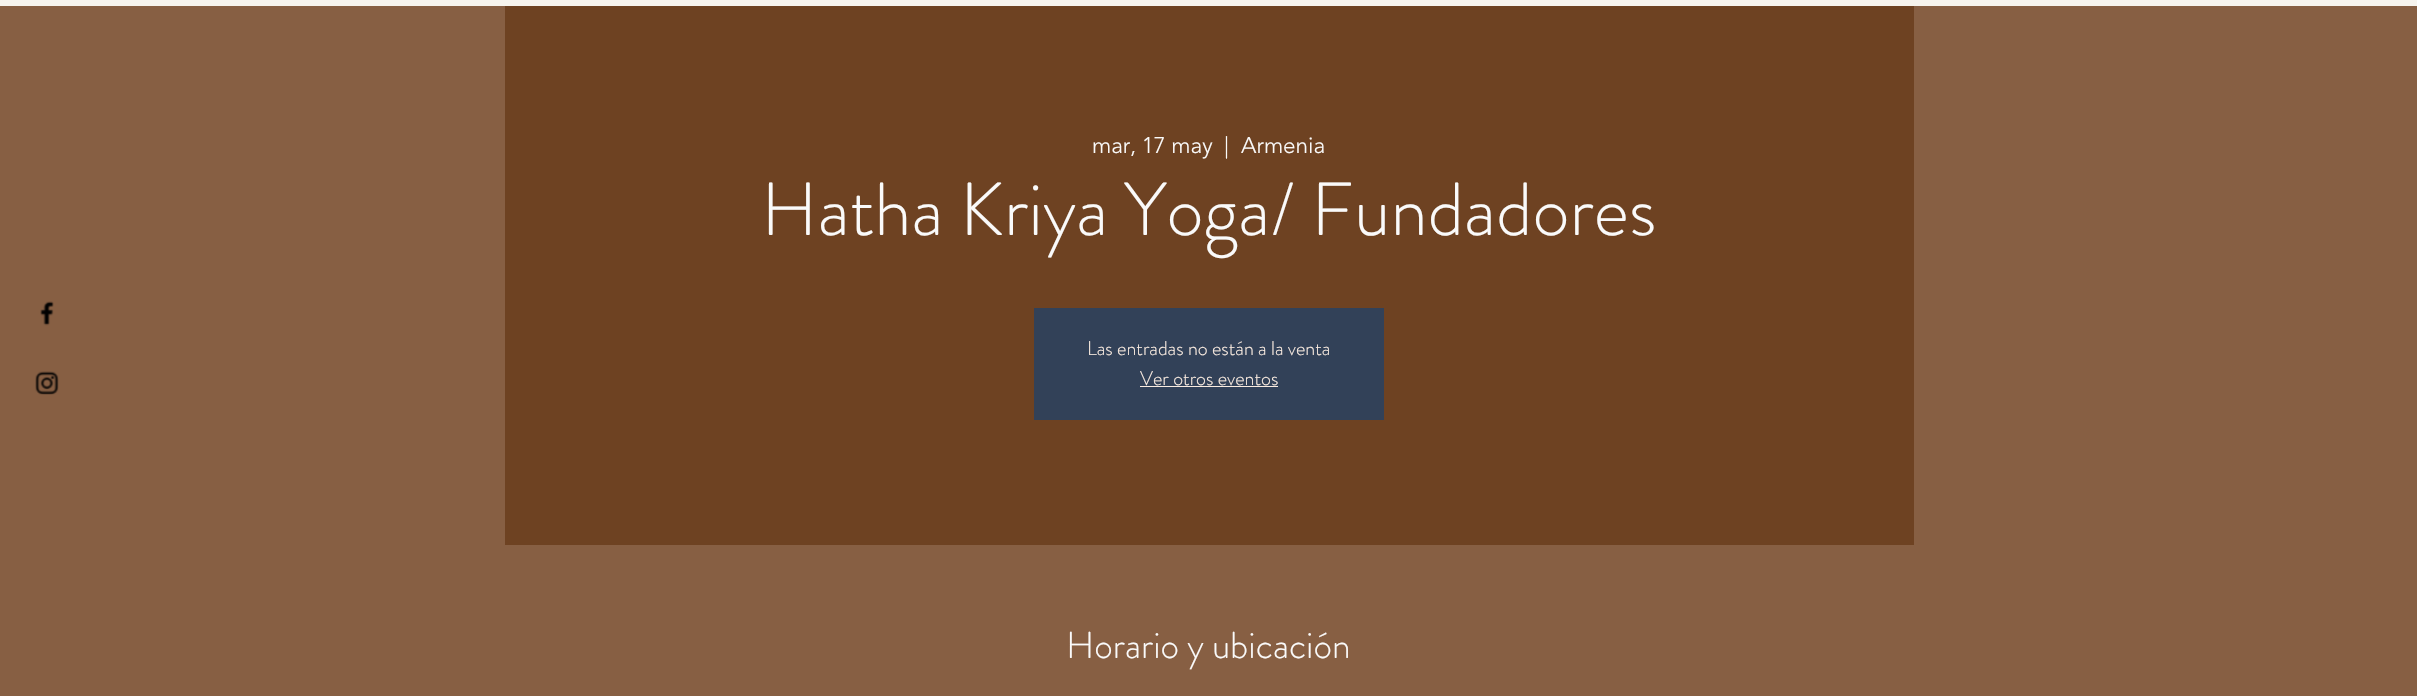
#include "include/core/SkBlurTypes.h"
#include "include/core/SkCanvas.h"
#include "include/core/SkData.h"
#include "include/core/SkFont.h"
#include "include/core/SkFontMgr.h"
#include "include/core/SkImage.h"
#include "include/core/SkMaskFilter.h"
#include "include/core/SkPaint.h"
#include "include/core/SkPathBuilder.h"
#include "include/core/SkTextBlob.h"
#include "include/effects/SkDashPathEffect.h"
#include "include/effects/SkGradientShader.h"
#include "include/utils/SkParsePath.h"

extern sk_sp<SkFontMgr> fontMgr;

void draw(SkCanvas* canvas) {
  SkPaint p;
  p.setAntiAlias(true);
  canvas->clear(SkColorSetRGB(247, 244, 238));
  p.setColor(SkColorSetRGB(135, 95, 67));
  canvas->drawRect(SkRect::MakeLTRB(0, 6, 2417, 696), p);
  canvas->drawImageRect(SkImages::DeferredFromEncodedData(SkData::MakeFromFileName("images/1.png")), SkRect::MakeLTRB(40, 301, 54, 326), SkSamplingOptions());
  canvas->drawImageRect(SkImages::DeferredFromEncodedData(SkData::MakeFromFileName("images/2.png")), SkRect::MakeLTRB(35, 371, 59, 395), SkSamplingOptions());
  p.setColor(SkColorSetRGB(110, 66, 34));
  canvas->drawRect(SkRect::MakeLTRB(505, 6, 1914, 545), p);
  p.setColor(SkColorSetRGB(50, 65, 88));
  canvas->drawRect(SkRect::MakeLTRB(1034, 308, 1384, 420), p);
  p.setColor(SkColorSetRGB(250, 236, 225));
  canvas->drawRect(SkRect::MakeLTRB(1140, 386, 1278, 387), p);
  SkFont font1(fontMgr->matchFamilyStyle("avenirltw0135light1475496", SkFontStyle(300, SkFontStyle::kNormal_Width, SkFontStyle::kUpright_Slant)), 22.5f);
  font1.setSubpixel(true);
  p.setColor(SkColorSetRGB(250, 250, 250));
  canvas->drawString("mar, 17 may", 1092, 153, font1, p);
  canvas->drawString("|", 1224, 153, font1, p);
  canvas->drawString("Armenia", 1241, 153, font1, p);
  SkFont font2(fontMgr->matchFamilyStyle("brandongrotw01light", SkFontStyle(300, SkFontStyle::kNormal_Width, SkFontStyle::kUpright_Slant)), 75);
  font2.setSubpixel(true);
  canvas->drawString("Hatha Kriya Yoga/ Fundadores", 761, 235, font2, p);
  SkFont font3(fontMgr->matchFamilyStyle("brandongrotw01light", SkFontStyle(300, SkFontStyle::kNormal_Width, SkFontStyle::kUpright_Slant)), 20);
  font3.setSubpixel(true);
  p.setColor(SkColorSetRGB(250, 236, 225));
  canvas->drawString("Las entradas no están a la venta", 1087, 355, font3, p);
  canvas->drawString("Ver otros eventos", 1140, 385, font3, p);
  SkFont font4(fontMgr->matchFamilyStyle("brandongrotw01light", SkFontStyle(300, SkFontStyle::kNormal_Width, SkFontStyle::kUpright_Slant)), 37.5f);
  font4.setSubpixel(true);
  p.setColor(SkColorSetRGB(250, 250, 250));
  canvas->drawString("Horario y ubicación", 1066, 658, font4, p);
}
